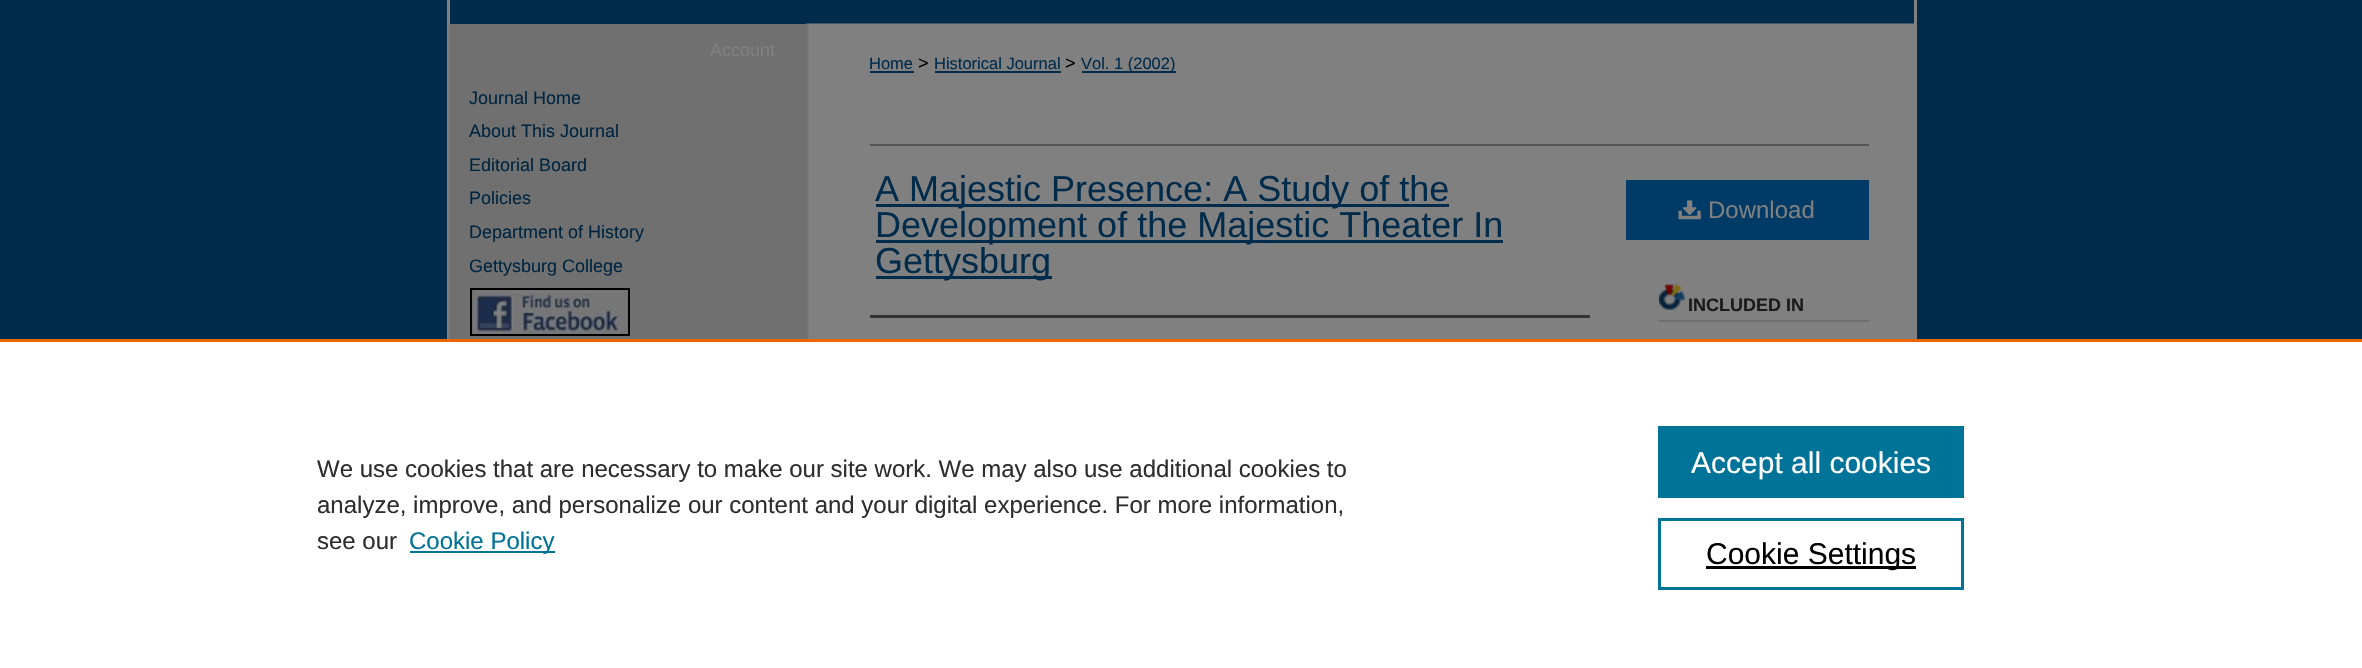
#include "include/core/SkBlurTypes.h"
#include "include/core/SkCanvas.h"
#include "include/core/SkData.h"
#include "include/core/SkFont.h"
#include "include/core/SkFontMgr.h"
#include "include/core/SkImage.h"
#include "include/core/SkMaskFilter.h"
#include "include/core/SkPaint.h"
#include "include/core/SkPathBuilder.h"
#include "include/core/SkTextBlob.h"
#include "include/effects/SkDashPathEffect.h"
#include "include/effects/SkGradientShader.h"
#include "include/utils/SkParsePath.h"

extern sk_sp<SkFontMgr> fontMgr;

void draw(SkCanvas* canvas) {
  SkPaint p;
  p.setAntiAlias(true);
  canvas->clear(SkColorSetRGB(0, 43, 75));
  p.setColor(SkColorSetRGB(128, 128, 128));
  canvas->drawRect(SkRect::MakeLTRB(1914, 0, 1917, 24), p);
  canvas->drawRect(SkRect::MakeLTRB(447, 0, 450, 24), p);
  canvas->drawRect(SkRect::MakeLTRB(447, 24, 1917, 339), p);
  canvas->drawImageRect(SkImages::DeferredFromEncodedData(SkData::MakeFromFileName("images/1.png")), SkRect::MakeLTRB(448, 23, 1914, 339), SkSamplingOptions());
  p.setColor(SkColorSetRGB(0, 43, 75));
  canvas->drawRect(SkRect::MakeLTRB(450, 23, 806, 24), p);
  canvas->drawImageRect(SkImages::DeferredFromEncodedData(SkData::MakeFromFileName("images/2.png")), SkRect::MakeLTRB(472, 290, 628, 334), SkSamplingOptions());
  p.setStyle(SkPaint::kStroke_Style);
  p.setStrokeWidth(2);
  p.setColor(SK_ColorBLACK);
  canvas->drawRect(SkRect::MakeLTRB(471, 289, 629, 335), p);
  p.setStyle(SkPaint::kFill_Style);
  p.setColor(SkColorSetRGB(0, 43, 75));
  canvas->drawRect(SkRect::MakeLTRB(870, 71, 914, 73), p);
  canvas->drawRect(SkRect::MakeLTRB(935, 71, 1061, 73), p);
  canvas->drawRect(SkRect::MakeLTRB(1082, 71, 1176, 73), p);
  p.setColor(SkColorSetRGB(85, 85, 85));
  canvas->drawRect(SkRect::MakeLTRB(870, 144, 1869, 146), p);
  p.setColor(SkColorSetRGB(0, 43, 75));
  canvas->drawRect(SkRect::MakeLTRB(876, 204, 1449, 207), p);
  canvas->drawRect(SkRect::MakeLTRB(876, 240, 1503, 243), p);
  canvas->drawRect(SkRect::MakeLTRB(876, 276, 1052, 279), p);
  p.setColor(SkColorSetRGB(51, 51, 51));
  canvas->drawRect(SkRect::MakeLTRB(870, 315, 1590, 318), p);
  p.setColor(SkColorSetRGB(0, 58, 102));
  canvas->drawRect(SkRect::MakeLTRB(1626, 180, 1869, 240), p);
  canvas->drawImageRect(SkImages::DeferredFromEncodedData(SkData::MakeFromFileName("images/3.png")), SkRect::MakeLTRB(1678, 200, 1701, 220), SkSamplingOptions());
  canvas->drawImageRect(SkImages::DeferredFromEncodedData(SkData::MakeFromFileName("images/4.png")), SkRect::MakeLTRB(1659, 284, 1685, 310), SkSamplingOptions());
  p.setColor(SkColorSetRGB(111, 111, 111));
  canvas->drawRect(SkRect::MakeLTRB(1659, 320, 1869, 322), p);
  p.setColor(SK_ColorWHITE);
  canvas->drawRect(SkRect::MakeLTRB(0, 342, 2362, 668), p);
  p.setColor(SkColorSetRGB(235, 101, 0));
  canvas->drawRect(SkRect::MakeLTRB(0, 339, 2362, 342), p);
  p.setColor(SkColorSetRGB(0, 115, 152));
  canvas->drawRect(SkRect::MakeLTRB(410, 551, 555, 553), p);
  canvas->drawRect(SkRect::MakeLTRB(1658, 426, 1964, 498), p);
  p.setStyle(SkPaint::kStroke_Style);
  p.setStrokeWidth(3);
  canvas->drawRect(SkRect::MakeLTRB(1659.5f, 519.5f, 1962.5f, 588.5f), p);
  p.setStyle(SkPaint::kFill_Style);
  p.setColor(SK_ColorBLACK);
  canvas->drawRect(SkRect::MakeLTRB(1706, 566, 1916, 569), p);
  SkFont font1(fontMgr->matchFamilyStyle("Liberation Sans", SkFontStyle::Normal()), 18);
  font1.setSubpixel(true);
  p.setColor(SkColorSetRGB(128, 128, 128));
  canvas->drawString("Account", 710, 56, font1, p);
  p.setColor(SkColorSetRGB(0, 37, 64));
  canvas->drawString("Journal Home", 469, 104, font1, p);
  canvas->drawString("About This Journal", 469, 137, font1, p);
  canvas->drawString("Editorial Board", 469, 171, font1, p);
  canvas->drawString("Policies", 469, 204, font1, p);
  canvas->drawString("Department of History", 469, 238, font1, p);
  canvas->drawString("Gettysburg College", 469, 272, font1, p);
  SkFont font2(fontMgr->matchFamilyStyle("Liberation Sans", SkFontStyle::Normal()), 16.5f);
  font2.setSubpixel(true);
  p.setColor(SkColorSetRGB(0, 43, 75));
  canvas->drawString("Home", 869, 69, font2, p);
  p.setColor(SK_ColorBLACK);
  canvas->drawString(">", 918, 69, font1, p);
  p.setColor(SkColorSetRGB(0, 43, 75));
  canvas->drawString("Historical Journal", 934, 69, font2, p);
  p.setColor(SK_ColorBLACK);
  canvas->drawString(">", 1065, 69, font1, p);
  p.setColor(SkColorSetRGB(0, 43, 75));
  canvas->drawString("Vol. 1 (2002)", 1081, 69, font2, p);
  SkFont font3(fontMgr->matchFamilyStyle("Liberation Sans", SkFontStyle::Normal()), 36);
  font3.setSubpixel(true);
  canvas->drawString("A Majestic Presence: A Study of the", 875, 201, font3, p);
  canvas->drawString("Development of the Majestic Theater In", 875, 237, font3, p);
  canvas->drawString("Gettysburg", 875, 273, font3, p);
  SkFont font4(fontMgr->matchFamilyStyle("Liberation Sans", SkFontStyle::Normal()), 24);
  font4.setSubpixel(true);
  p.setColor(SkColorSetRGB(128, 128, 128));
  canvas->drawString("Download", 1708, 218, font4, p);
  SkFont font5(fontMgr->matchFamilyStyle("Liberation Sans", SkFontStyle::Bold()), 18);
  font5.setSubpixel(true);
  p.setColor(SkColorSetRGB(26, 26, 26));
  canvas->drawString("INCLUDED IN", 1688, 311, font5, p);
  p.setColor(SkColorSetRGB(46, 46, 46));
  canvas->drawString("We use cookies that are necessary to make our site work. We may also use additional cookies to", 317, 477, font4, p);
  canvas->drawString("analyze, improve, and personalize our content and your digital experience. For more information,", 317, 513, font4, p);
  canvas->drawString("see our", 317, 549, font4, p);
  p.setColor(SkColorSetRGB(0, 115, 152));
  canvas->drawString("Cookie Policy", 409, 549, font4, p);
  SkFont font6(fontMgr->matchFamilyStyle("Liberation Sans", SkFontStyle::Normal()), 30);
  font6.setSubpixel(true);
  p.setColor(SK_ColorWHITE);
  canvas->drawString("Accept all cookies", 1691, 473, font6, p);
  p.setColor(SK_ColorBLACK);
  canvas->drawString("Cookie Settings", 1706, 564, font6, p);
}
